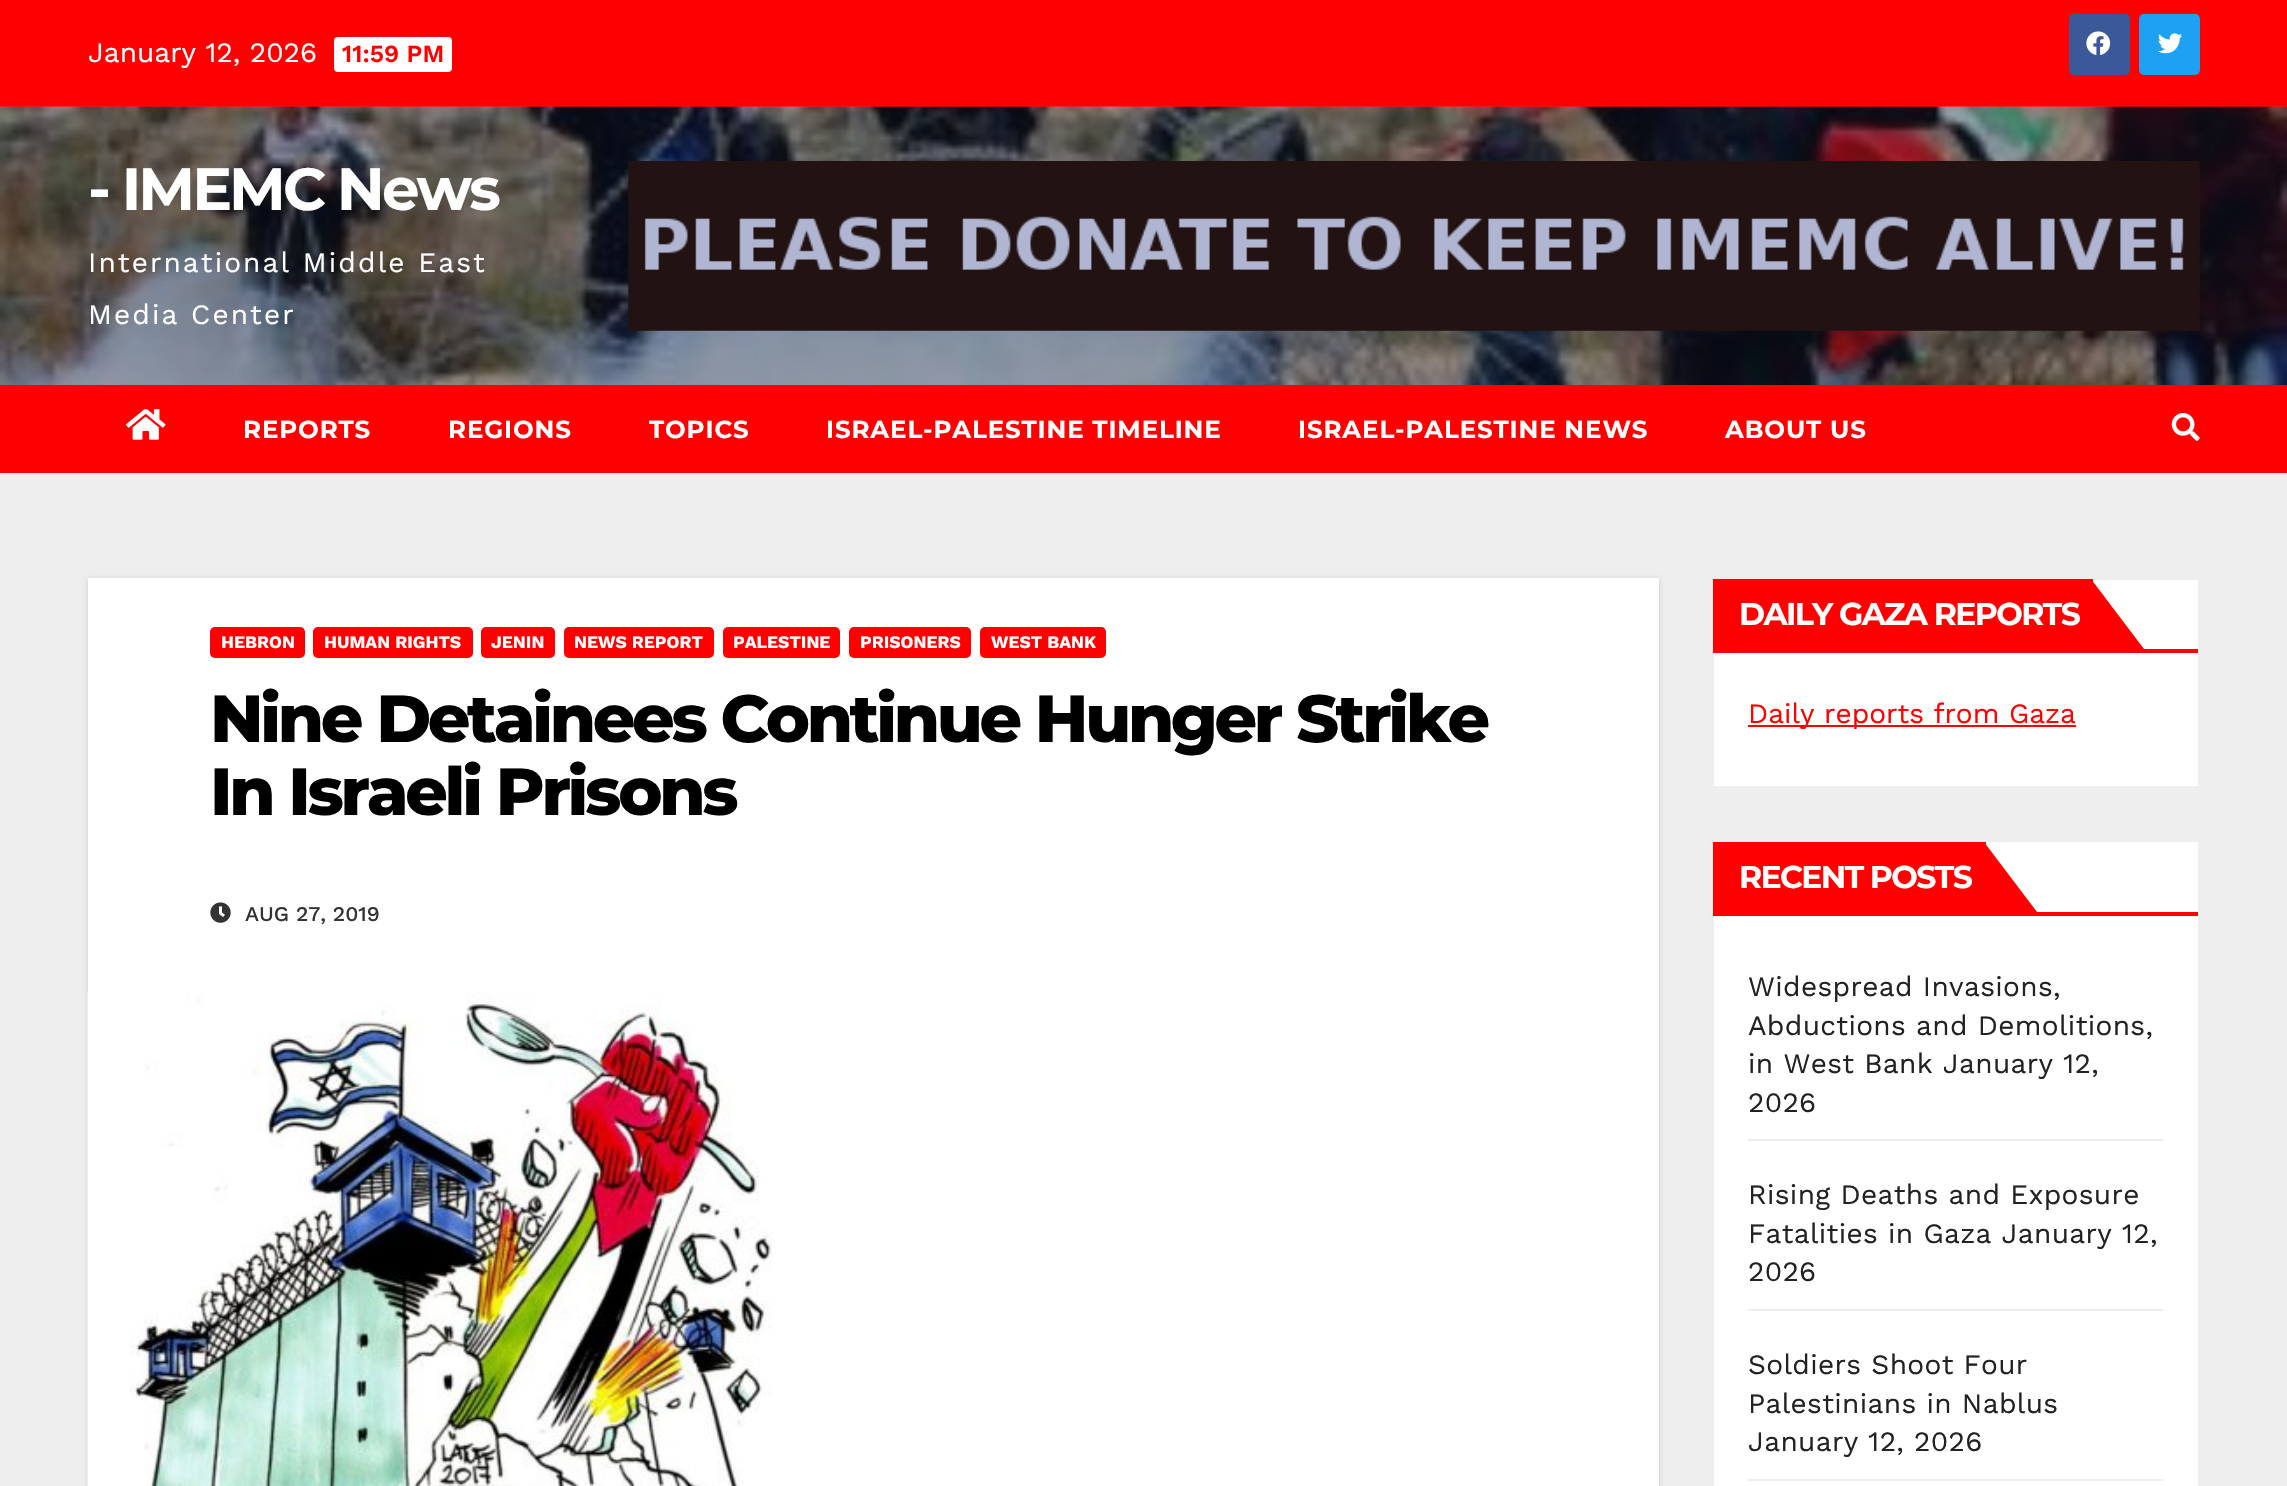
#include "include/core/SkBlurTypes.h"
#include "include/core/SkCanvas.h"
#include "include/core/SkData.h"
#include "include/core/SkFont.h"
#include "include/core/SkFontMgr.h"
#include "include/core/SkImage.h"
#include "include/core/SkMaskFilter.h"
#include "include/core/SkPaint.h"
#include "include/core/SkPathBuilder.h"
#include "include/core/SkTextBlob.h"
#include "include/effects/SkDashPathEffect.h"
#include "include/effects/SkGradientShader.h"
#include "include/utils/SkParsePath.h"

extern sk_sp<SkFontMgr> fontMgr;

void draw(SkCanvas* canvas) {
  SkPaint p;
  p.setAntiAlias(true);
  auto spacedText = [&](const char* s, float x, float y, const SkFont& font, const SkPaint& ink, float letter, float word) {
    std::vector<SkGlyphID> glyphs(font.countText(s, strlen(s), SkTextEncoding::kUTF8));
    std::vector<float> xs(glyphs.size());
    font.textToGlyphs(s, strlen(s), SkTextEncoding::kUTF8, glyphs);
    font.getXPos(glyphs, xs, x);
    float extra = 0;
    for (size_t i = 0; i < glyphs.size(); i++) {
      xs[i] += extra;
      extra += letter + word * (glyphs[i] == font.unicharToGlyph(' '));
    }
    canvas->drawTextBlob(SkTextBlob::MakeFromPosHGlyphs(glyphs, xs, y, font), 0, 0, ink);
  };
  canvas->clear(SkColorSetRGB(238, 238, 238));
  p.setColor(SkColorSetRGB(255, 0, 0));
  canvas->drawRect(SkRect::MakeLTRB(0, 0, 2287, 107), p);
  p.setColor(SK_ColorWHITE);
  canvas->drawRoundRect(SkRect::MakeLTRB(334, 37, 452, 72), 4, 4, p);
  p.setColor(SkColorSetRGB(59, 89, 152));
  canvas->drawRoundRect(SkRect::MakeLTRB(2069, 14, 2130, 75), 5, 5, p);
  canvas->drawImageRect(SkImages::DeferredFromEncodedData(SkData::MakeFromFileName("images/1.png")), SkRect::MakeLTRB(2086, 31, 2111, 55), SkSamplingOptions());
  p.setColor(SkColorSetRGB(29, 161, 242));
  canvas->drawRoundRect(SkRect::MakeLTRB(2139, 14, 2200, 75), 5, 5, p);
  canvas->drawImageRect(SkImages::DeferredFromEncodedData(SkData::MakeFromFileName("images/2.png")), SkRect::MakeLTRB(2158, 33, 2183, 54), SkSamplingOptions());
  canvas->drawImageRect(SkImages::DeferredFromEncodedData(SkData::MakeFromFileName("images/3.png")), SkRect::MakeLTRB(0, 106, 2287, 385), SkSamplingOptions());
  canvas->drawImageRect(SkImages::DeferredFromEncodedData(SkData::MakeFromFileName("images/4.png")), SkRect::MakeLTRB(628, 161, 2200, 331), SkSamplingOptions());
  p.setColor(SkColorSetRGB(255, 0, 0));
  canvas->drawRect(SkRect::MakeLTRB(0, 385, 2287, 473), p);
  canvas->drawImageRect(SkImages::DeferredFromEncodedData(SkData::MakeFromFileName("images/5.png")), SkRect::MakeLTRB(126, 409, 166, 440), SkSamplingOptions());
  canvas->drawImageRect(SkImages::DeferredFromEncodedData(SkData::MakeFromFileName("images/6.png")), SkRect::MakeLTRB(2171, 413, 2200, 441), SkSamplingOptions());
  p.setColor(SkColorSetARGB(38, 0, 0, 0));
  p.setMaskFilter(SkMaskFilter::MakeBlur(kNormal_SkBlurStyle, 2.5f));
  canvas->drawRect(SkRect::MakeLTRB(88, 579, 1659, 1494), p);
  p.setMaskFilter(nullptr);
  p.setColor(SK_ColorWHITE);
  canvas->drawRect(SkRect::MakeLTRB(88, 578, 1659, 1486), p);
  p.setColor(SkColorSetRGB(255, 0, 0));
  canvas->drawRoundRect(SkRect::MakeLTRB(210, 627, 305, 658), 5, 5, p);
  canvas->drawRoundRect(SkRect::MakeLTRB(313, 627, 473, 658), 5, 5, p);
  canvas->drawRoundRect(SkRect::MakeLTRB(481, 627, 555, 658), 5, 5, p);
  canvas->drawRoundRect(SkRect::MakeLTRB(564, 627, 714, 658), 5, 5, p);
  canvas->drawRoundRect(SkRect::MakeLTRB(723, 627, 840, 658), 5, 5, p);
  canvas->drawRoundRect(SkRect::MakeLTRB(849, 627, 971, 658), 5, 5, p);
  canvas->drawRoundRect(SkRect::MakeLTRB(980, 627, 1106, 658), 5, 5, p);
  canvas->drawImageRect(SkImages::DeferredFromEncodedData(SkData::MakeFromFileName("images/7.png")), SkRect::MakeLTRB(210, 902, 231, 923), SkSamplingOptions());
  canvas->drawImageRect(SkImages::DeferredFromEncodedData(SkData::MakeFromFileName("images/8.png")), SkRect::MakeLTRB(87, 992, 774, 1486), SkSamplingOptions());
  p.setColor(SK_ColorWHITE);
  canvas->drawRect(SkRect::MakeLTRB(1714, 580, 2198, 786), p);
  p.setColor(SkColorSetRGB(255, 0, 0));
  canvas->drawRect(SkRect::MakeLTRB(1713, 649, 2198, 653), p);
  canvas->drawRect(SkRect::MakeLTRB(1713, 579, 2093, 649), p);
  canvas->drawPath(SkPathBuilder().moveTo(2091, 649).lineTo(2091, 579).lineTo(2144, 649).close().detach(), p);
  canvas->drawRect(SkRect::MakeLTRB(1748, 725, 2076, 727), p);
  p.setColor(SK_ColorWHITE);
  canvas->drawRect(SkRect::MakeLTRB(1714, 842, 2198, 1486), p);
  p.setColor(SkColorSetRGB(255, 0, 0));
  canvas->drawRect(SkRect::MakeLTRB(1713, 912, 2198, 916), p);
  canvas->drawRect(SkRect::MakeLTRB(1713, 842, 1986, 912), p);
  canvas->drawPath(SkPathBuilder().moveTo(1984, 912).lineTo(1984, 842).lineTo(2037, 912).close().detach(), p);
  p.setColor(SkColorSetRGB(238, 238, 238));
  canvas->drawRect(SkRect::MakeLTRB(1748, 1139, 2163, 1141), p);
  canvas->drawRect(SkRect::MakeLTRB(1748, 1309, 2163, 1311), p);
  canvas->drawRect(SkRect::MakeLTRB(1748, 1479, 2163, 1481), p);
  SkFont font1(fontMgr->matchFamilyStyle("Work Sans", SkFontStyle::Normal()), 28);
  font1.setSubpixel(true);
  p.setColor(SK_ColorWHITE);
  canvas->drawString("January 12, 2026", 88, 62, font1, p);
  SkFont font2(fontMgr->matchFamilyStyle("Work Sans", SkFontStyle(600, SkFontStyle::kNormal_Width, SkFontStyle::kUpright_Slant)), 24.5f);
  font2.setSubpixel(true);
  p.setColor(SkColorSetRGB(255, 0, 0));
  canvas->drawString("11:59 PM", 342, 62, font2, p);
  SkFont font3(fontMgr->matchFamilyStyle("Montserrat", SkFontStyle(100, SkFontStyle::kNormal_Width, SkFontStyle::kUpright_Slant)), 59.5f);
  font3.setSubpixel(true);
  p.setColor(SK_ColorWHITE);
  spacedText("- IMEMC News", 88, 210, font3, p, -3, 0);
  spacedText("International Middle East", 88, 272, font1, p, 2.1f, 0);
  spacedText("Media Center", 88, 324, font1, p, 2.1f, 0);
  SkFont font4(fontMgr->matchFamilyStyle("Montserrat", SkFontStyle(100, SkFontStyle::kNormal_Width, SkFontStyle::kUpright_Slant)), 24.5f);
  font4.setSubpixel(true);
  spacedText("REPORTS", 243, 438, font4, p, 0.9f, 0);
  spacedText("REGIONS", 448, 438, font4, p, 0.9f, 0);
  spacedText("TOPICS", 649, 438, font4, p, 0.9f, 0);
  spacedText("ISRAEL-PALESTINE TIMELINE", 826, 438, font4, p, 0.9f, 0);
  spacedText("ISRAEL-PALESTINE NEWS", 1298, 438, font4, p, 0.9f, 0);
  spacedText("ABOUT US", 1725, 438, font4, p, 0.9f, 0);
  SkFont font5(fontMgr->matchFamilyStyle("Work Sans", SkFontStyle::Bold()), 17.5f);
  font5.setSubpixel(true);
  canvas->drawString("HEBRON", 221, 648, font5, p);
  canvas->drawString("HUMAN RIGHTS", 324, 648, font5, p);
  canvas->drawString("JENIN", 491, 648, font5, p);
  canvas->drawString("NEWS REPORT", 574, 648, font5, p);
  canvas->drawString("PALESTINE", 733, 648, font5, p);
  canvas->drawString("PRISONERS", 860, 648, font5, p);
  canvas->drawString("WEST BANK", 991, 648, font5, p);
  SkFont font6(fontMgr->matchFamilyStyle("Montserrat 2", SkFontStyle(100, SkFontStyle::kNormal_Width, SkFontStyle::kUpright_Slant)), 66.5f);
  font6.setSubpixel(true);
  p.setColor(SK_ColorBLACK);
  spacedText("Nine Detainees Continue Hunger Strike", 210, 742, font6, p, -3.3f, 0);
  spacedText("In Israeli Prisons", 210, 815, font6, p, -3.3f, 0);
  SkFont font7(fontMgr->matchFamilyStyle("Work Sans", SkFontStyle(500, SkFontStyle::kNormal_Width, SkFontStyle::kUpright_Slant)), 21);
  font7.setSubpixel(true);
  p.setColor(SkColorSetRGB(51, 51, 51));
  canvas->drawString("AUG 27, 2019", 245, 921, font7, p);
  SkFont font8(fontMgr->matchFamilyStyle("Montserrat", SkFontStyle(100, SkFontStyle::kNormal_Width, SkFontStyle::kUpright_Slant)), 31.5f);
  font8.setSubpixel(true);
  p.setColor(SK_ColorWHITE);
  spacedText("DAILY GAZA REPORTS", 1739, 625, font8, p, -1.6f, 0);
  p.setColor(SkColorSetRGB(255, 0, 0));
  canvas->drawString("Daily reports from Gaza", 1748, 723, font1, p);
  p.setColor(SK_ColorWHITE);
  spacedText("RECENT POSTS", 1739, 888, font8, p, -1.6f, 0);
  p.setColor(SkColorSetRGB(34, 34, 34));
  spacedText("Widespread Invasions,", 1748, 996, font1, p, 0.35f, 0);
  spacedText("Abductions and Demolitions,", 1748, 1035, font1, p, 0.35f, 0);
  spacedText("in West Bank January 12,", 1748, 1073, font1, p, 0.35f, 0);
  spacedText("2026", 1748, 1112, font1, p, 0.35f, 0);
  spacedText("Rising Deaths and Exposure", 1748, 1204, font1, p, 0.35f, 0);
  spacedText("Fatalities in Gaza January 12,", 1748, 1243, font1, p, 0.35f, 0);
  spacedText("2026", 1748, 1281, font1, p, 0.35f, 0);
  spacedText("Soldiers Shoot Four", 1748, 1374, font1, p, 0.35f, 0);
  spacedText("Palestinians in Nablus", 1748, 1413, font1, p, 0.35f, 0);
  spacedText("January 12, 2026", 1748, 1451, font1, p, 0.35f, 0);
}
